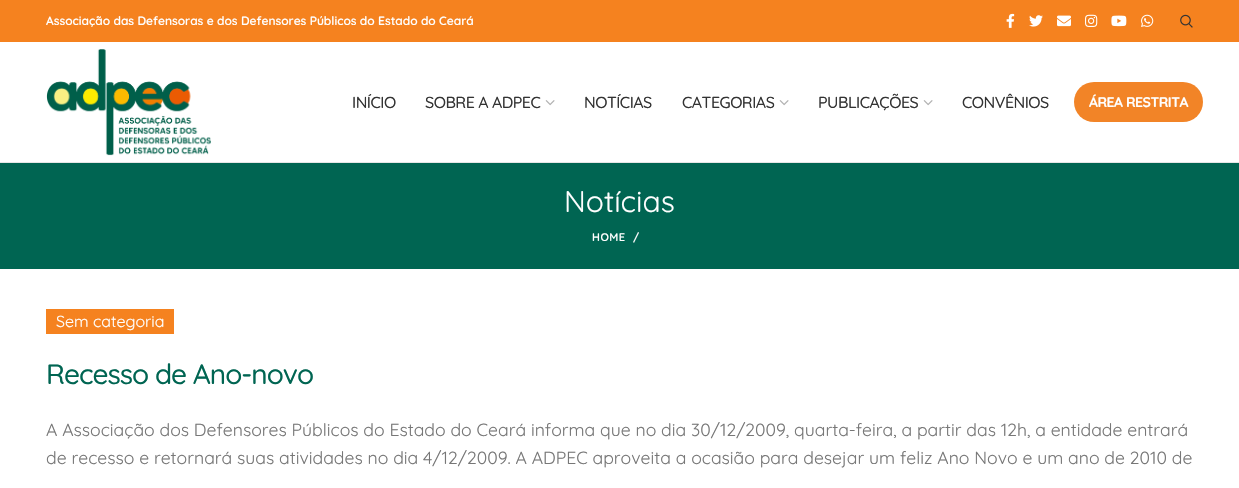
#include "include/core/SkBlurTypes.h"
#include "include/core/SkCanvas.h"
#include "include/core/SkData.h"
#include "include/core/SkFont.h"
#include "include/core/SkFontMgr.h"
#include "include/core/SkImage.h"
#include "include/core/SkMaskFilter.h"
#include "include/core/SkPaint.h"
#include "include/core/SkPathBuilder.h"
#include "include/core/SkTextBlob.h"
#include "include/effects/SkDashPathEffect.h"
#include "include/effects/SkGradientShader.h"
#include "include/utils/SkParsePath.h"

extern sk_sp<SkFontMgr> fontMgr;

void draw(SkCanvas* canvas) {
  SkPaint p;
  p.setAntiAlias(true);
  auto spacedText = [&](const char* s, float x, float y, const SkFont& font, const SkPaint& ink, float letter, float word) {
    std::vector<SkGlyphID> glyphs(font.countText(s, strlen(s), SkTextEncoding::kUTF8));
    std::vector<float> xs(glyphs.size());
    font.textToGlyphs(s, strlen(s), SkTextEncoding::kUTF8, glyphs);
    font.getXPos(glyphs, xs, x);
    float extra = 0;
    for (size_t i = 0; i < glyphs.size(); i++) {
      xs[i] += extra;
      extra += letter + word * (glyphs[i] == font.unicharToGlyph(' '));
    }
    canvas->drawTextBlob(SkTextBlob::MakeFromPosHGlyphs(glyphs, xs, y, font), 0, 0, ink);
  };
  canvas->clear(SK_ColorWHITE);
  p.setColor(SkColorSetRGB(245, 130, 31));
  canvas->drawRect(SkRect::MakeLTRB(0, 0, 1239, 42), p);
  canvas->drawImageRect(SkImages::DeferredFromEncodedData(SkData::MakeFromFileName("images/1.png")), SkRect::MakeLTRB(1006, 13, 1015, 28), SkSamplingOptions());
  canvas->drawImageRect(SkImages::DeferredFromEncodedData(SkData::MakeFromFileName("images/2.png")), SkRect::MakeLTRB(1029, 15, 1043, 27), SkSamplingOptions());
  canvas->drawImageRect(SkImages::DeferredFromEncodedData(SkData::MakeFromFileName("images/3.png")), SkRect::MakeLTRB(1057, 15, 1071, 27), SkSamplingOptions());
  canvas->drawImageRect(SkImages::DeferredFromEncodedData(SkData::MakeFromFileName("images/4.png")), SkRect::MakeLTRB(1085, 14, 1098, 27), SkSamplingOptions());
  canvas->drawImageRect(SkImages::DeferredFromEncodedData(SkData::MakeFromFileName("images/5.png")), SkRect::MakeLTRB(1111, 15, 1127, 27), SkSamplingOptions());
  canvas->drawImageRect(SkImages::DeferredFromEncodedData(SkData::MakeFromFileName("images/6.png")), SkRect::MakeLTRB(1141, 14, 1154, 27), SkSamplingOptions());
  canvas->drawImageRect(SkImages::DeferredFromEncodedData(SkData::MakeFromFileName("images/7.png")), SkRect::MakeLTRB(1180, 14, 1193, 28), SkSamplingOptions());
  p.setColor(SkColorSetRGB(230, 230, 230));
  canvas->drawRect(SkRect::MakeLTRB(0, 162, 1239, 163), p);
  canvas->drawImageRect(SkImages::DeferredFromEncodedData(SkData::MakeFromFileName("images/8.png")), SkRect::MakeLTRB(46, 49, 211, 156), SkSamplingOptions());
  canvas->drawImageRect(SkImages::DeferredFromEncodedData(SkData::MakeFromFileName("images/9.png")), SkRect::MakeLTRB(545, 100, 555, 106), SkSamplingOptions());
  canvas->drawImageRect(SkImages::DeferredFromEncodedData(SkData::MakeFromFileName("images/9.png")), SkRect::MakeLTRB(779, 100, 789, 106), SkSamplingOptions());
  canvas->drawImageRect(SkImages::DeferredFromEncodedData(SkData::MakeFromFileName("images/9.png")), SkRect::MakeLTRB(923, 100, 933, 106), SkSamplingOptions());
  p.setColor(SkColorSetRGB(242, 132, 39));
  canvas->drawRoundRect(SkRect::MakeLTRB(1074, 82, 1203, 122), 20, 20, p);
  p.setColor(SkColorSetRGB(0, 101, 82));
  canvas->drawRect(SkRect::MakeLTRB(0, 163, 1239, 269), p);
  p.setColor(SkColorSetRGB(245, 130, 31));
  canvas->drawRect(SkRect::MakeLTRB(46, 309, 174, 334), p);
  SkFont font1(fontMgr->matchFamilyStyle("Quicksand", SkFontStyle(600, SkFontStyle::kNormal_Width, SkFontStyle::kUpright_Slant)), 12);
  font1.setSubpixel(true);
  p.setColor(SK_ColorWHITE);
  canvas->drawString("Associação das Defensoras e dos Defensores Públicos do Estado do Ceará", 46, 25, font1, p);
  SkFont font2(fontMgr->matchFamilyStyle("Quicksand", SkFontStyle(500, SkFontStyle::kNormal_Width, SkFontStyle::kUpright_Slant)), 16);
  font2.setSubpixel(true);
  p.setColor(SkColorSetRGB(51, 51, 51));
  spacedText("INÍCIO", 352, 108, font2, p, -0.5f, 0);
  spacedText("SOBRE A ADPEC", 425, 108, font2, p, -0.5f, 0);
  spacedText("NOTÍCIAS", 584, 108, font2, p, -0.5f, 0);
  spacedText("CATEGORIAS", 682, 108, font2, p, -0.5f, 0);
  spacedText("PUBLICAÇÕES", 818, 108, font2, p, -0.5f, 0);
  spacedText("CONVÊNIOS", 962, 108, font2, p, -0.5f, 0);
  SkFont font3(fontMgr->matchFamilyStyle("Quicksand", SkFontStyle::Bold()), 14);
  font3.setSubpixel(true);
  p.setColor(SK_ColorWHITE);
  spacedText("ÁREA RESTRITA", 1089, 107, font3, p, -0.5f, 0);
  SkFont font4(fontMgr->matchFamilyStyle("Quicksand", SkFontStyle::Normal()), 30);
  font4.setSubpixel(true);
  canvas->drawString("Notícias", 564, 212, font4, p);
  SkFont font5(fontMgr->matchFamilyStyle("Quicksand", SkFontStyle(600, SkFontStyle::kNormal_Width, SkFontStyle::kUpright_Slant)), 11);
  font5.setSubpixel(true);
  spacedText("HOME", 592, 241, font5, p, 0.5f, 0);
  spacedText("/", 633, 241, font5, p, 0.5f, 0);
  SkFont font6(fontMgr->matchFamilyStyle("Quicksand", SkFontStyle::Normal()), 16);
  font6.setSubpixel(true);
  canvas->drawString("Sem categoria", 56, 327, font6, p);
  SkFont font7(fontMgr->matchFamilyStyle("Quicksand", SkFontStyle(500, SkFontStyle::kNormal_Width, SkFontStyle::kUpright_Slant)), 28);
  font7.setSubpixel(true);
  p.setColor(SkColorSetRGB(0, 101, 82));
  spacedText("Recesso de Ano-novo", 46, 384, font7, p, -1, 0);
  SkFont font8(fontMgr->matchFamilyStyle("Quicksand", SkFontStyle::Normal()), 17.6f);
  font8.setSubpixel(true);
  p.setColor(SkColorSetRGB(119, 119, 119));
  canvas->drawString("A Associação dos Defensores Públicos do Estado do Ceará informa que no dia 30/12/2009, quarta-feira, a partir das 12h, a entidade entrará", 46, 436, font8, p);
  canvas->drawString("de recesso e retornará suas atividades no dia 4/12/2009. A ADPEC aproveita a ocasião para desejar um feliz Ano Novo e um ano de 2010 de", 46, 464, font8, p);
}
